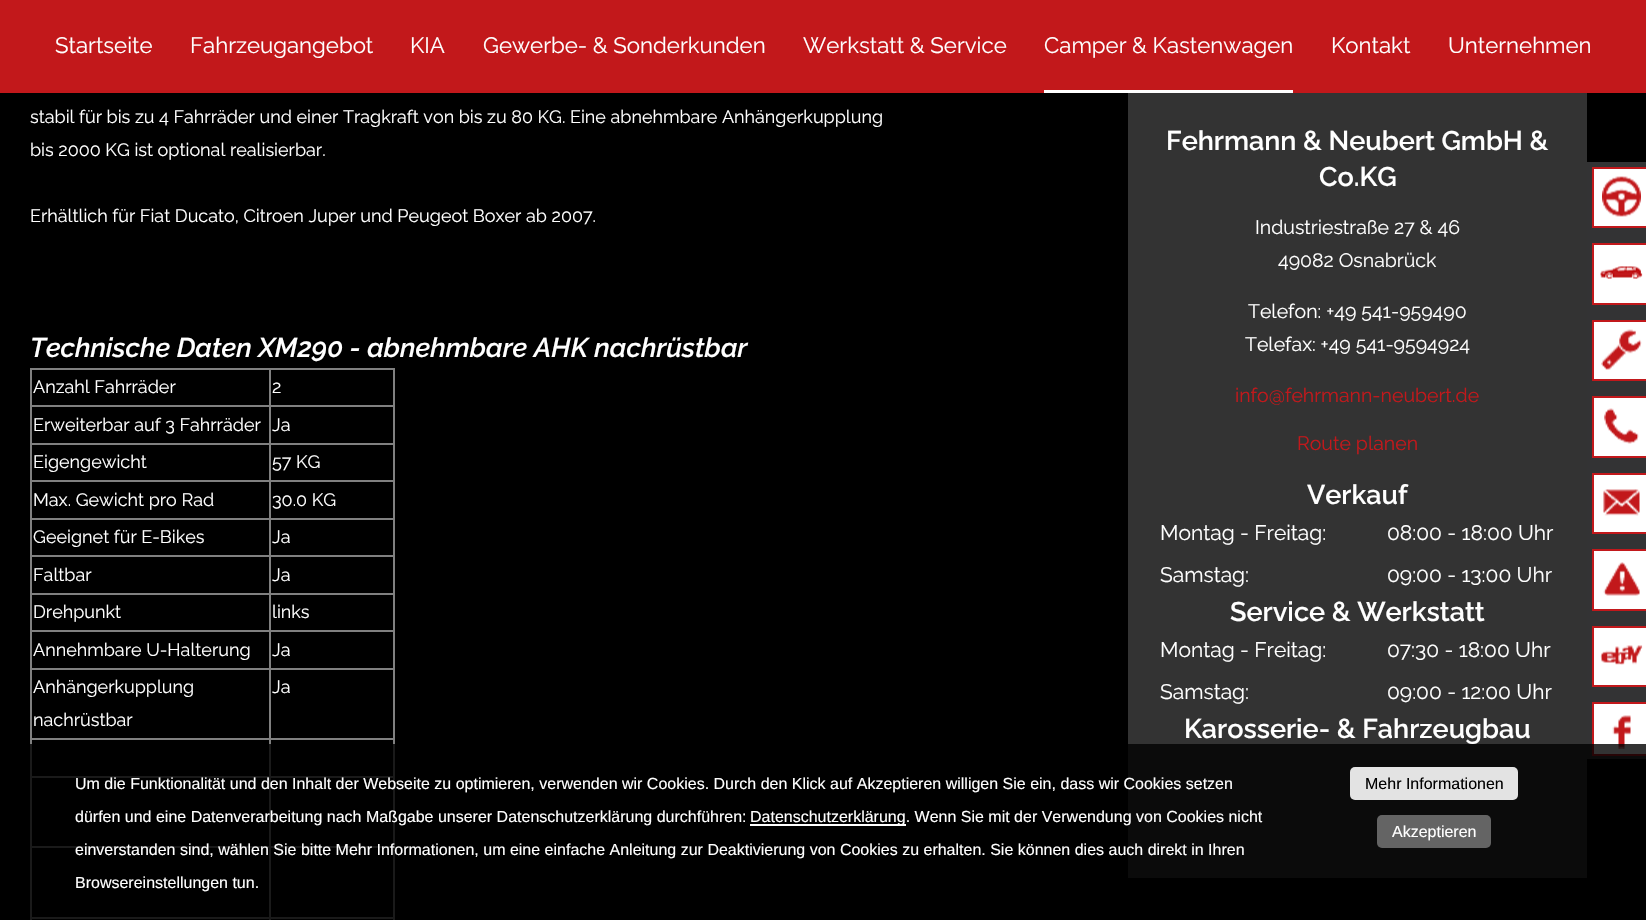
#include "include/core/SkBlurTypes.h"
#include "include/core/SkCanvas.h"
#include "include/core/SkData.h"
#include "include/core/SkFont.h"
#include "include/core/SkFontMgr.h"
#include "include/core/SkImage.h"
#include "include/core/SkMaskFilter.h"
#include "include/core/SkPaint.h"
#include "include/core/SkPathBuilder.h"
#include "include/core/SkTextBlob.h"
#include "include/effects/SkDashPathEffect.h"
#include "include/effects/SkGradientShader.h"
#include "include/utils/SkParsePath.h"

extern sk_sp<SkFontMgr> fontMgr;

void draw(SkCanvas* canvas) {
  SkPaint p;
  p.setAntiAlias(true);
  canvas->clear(SK_ColorBLACK);
  p.setColor(SkColorSetRGB(194, 24, 27));
  canvas->drawRect(SkRect::MakeLTRB(0, 0, 1646, 93), p);
  p.setColor(SK_ColorWHITE);
  canvas->drawRect(SkRect::MakeLTRB(1044, 90, 1293, 93), p);
  p.setColor(SkColorSetRGB(128, 128, 128));
  canvas->drawRect(SkRect::MakeLTRB(30, 368, 395, 370), p);
  canvas->drawRect(SkRect::MakeLTRB(393, 368, 395, 920), p);
  canvas->drawRect(SkRect::MakeLTRB(30, 368, 32, 920), p);
  canvas->drawRect(SkRect::MakeLTRB(269, 405, 395, 407), p);
  canvas->drawRect(SkRect::MakeLTRB(269, 443, 395, 445), p);
  canvas->drawRect(SkRect::MakeLTRB(269, 480, 395, 482), p);
  canvas->drawRect(SkRect::MakeLTRB(269, 518, 395, 520), p);
  canvas->drawRect(SkRect::MakeLTRB(269, 555, 395, 557), p);
  canvas->drawRect(SkRect::MakeLTRB(269, 593, 395, 595), p);
  canvas->drawRect(SkRect::MakeLTRB(269, 630, 395, 632), p);
  canvas->drawRect(SkRect::MakeLTRB(269, 668, 395, 670), p);
  canvas->drawRect(SkRect::MakeLTRB(269, 738, 395, 740), p);
  canvas->drawRect(SkRect::MakeLTRB(269, 776, 395, 778), p);
  canvas->drawRect(SkRect::MakeLTRB(269, 846, 395, 848), p);
  canvas->drawRect(SkRect::MakeLTRB(269, 917, 395, 919), p);
  canvas->drawRect(SkRect::MakeLTRB(269, 917, 271, 920), p);
  canvas->drawRect(SkRect::MakeLTRB(30, 917, 270, 919), p);
  canvas->drawRect(SkRect::MakeLTRB(269, 846, 271, 918), p);
  canvas->drawRect(SkRect::MakeLTRB(30, 846, 270, 848), p);
  canvas->drawRect(SkRect::MakeLTRB(269, 776, 271, 848), p);
  canvas->drawRect(SkRect::MakeLTRB(30, 776, 270, 778), p);
  canvas->drawRect(SkRect::MakeLTRB(269, 738, 271, 777), p);
  canvas->drawRect(SkRect::MakeLTRB(30, 738, 270, 740), p);
  canvas->drawRect(SkRect::MakeLTRB(269, 668, 271, 740), p);
  canvas->drawRect(SkRect::MakeLTRB(30, 668, 270, 670), p);
  canvas->drawRect(SkRect::MakeLTRB(269, 630, 271, 669), p);
  canvas->drawRect(SkRect::MakeLTRB(30, 630, 270, 632), p);
  canvas->drawRect(SkRect::MakeLTRB(269, 593, 271, 632), p);
  canvas->drawRect(SkRect::MakeLTRB(30, 593, 270, 595), p);
  canvas->drawRect(SkRect::MakeLTRB(269, 555, 271, 594), p);
  canvas->drawRect(SkRect::MakeLTRB(30, 555, 270, 557), p);
  canvas->drawRect(SkRect::MakeLTRB(269, 518, 271, 557), p);
  canvas->drawRect(SkRect::MakeLTRB(30, 518, 270, 520), p);
  canvas->drawRect(SkRect::MakeLTRB(269, 480, 271, 519), p);
  canvas->drawRect(SkRect::MakeLTRB(30, 480, 270, 482), p);
  canvas->drawRect(SkRect::MakeLTRB(269, 443, 271, 482), p);
  canvas->drawRect(SkRect::MakeLTRB(30, 443, 270, 445), p);
  canvas->drawRect(SkRect::MakeLTRB(269, 405, 271, 444), p);
  canvas->drawRect(SkRect::MakeLTRB(30, 405, 270, 407), p);
  canvas->drawRect(SkRect::MakeLTRB(269, 368, 271, 407), p);
  p.setColor(SkColorSetRGB(51, 51, 51));
  canvas->drawRect(SkRect::MakeLTRB(1128, 93, 1587, 878), p);
  p.setColor(SkColorSetRGB(51, 51, 52));
  canvas->drawRect(SkRect::MakeLTRB(1587, 162, 1646, 759), p);
  p.setColor(SK_ColorWHITE);
  canvas->drawRect(SkRect::MakeLTRB(1593, 168, 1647, 227), p);
  p.setStyle(SkPaint::kStroke_Style);
  p.setStrokeWidth(2);
  p.setColor(SkColorSetRGB(194, 24, 27));
  canvas->drawRect(SkRect::MakeLTRB(1593, 168, 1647, 227), p);
  canvas->drawImageRect(SkImages::DeferredFromEncodedData(SkData::MakeFromFileName("images/1.png")), SkRect::MakeLTRB(1602, 176, 1641, 217), SkSamplingOptions());
  p.setStyle(SkPaint::kFill_Style);
  p.setColor(SK_ColorWHITE);
  canvas->drawRect(SkRect::MakeLTRB(1593, 244, 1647, 304), p);
  p.setStyle(SkPaint::kStroke_Style);
  p.setColor(SkColorSetRGB(194, 24, 27));
  canvas->drawRect(SkRect::MakeLTRB(1593, 244, 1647, 304), p);
  canvas->drawImageRect(SkImages::DeferredFromEncodedData(SkData::MakeFromFileName("images/2.png")), SkRect::MakeLTRB(1600, 266, 1643, 279), SkSamplingOptions());
  p.setStyle(SkPaint::kFill_Style);
  p.setColor(SK_ColorWHITE);
  canvas->drawRect(SkRect::MakeLTRB(1593, 321, 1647, 380), p);
  p.setStyle(SkPaint::kStroke_Style);
  p.setColor(SkColorSetRGB(194, 24, 27));
  canvas->drawRect(SkRect::MakeLTRB(1593, 321, 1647, 380), p);
  canvas->drawImageRect(SkImages::DeferredFromEncodedData(SkData::MakeFromFileName("images/3.png")), SkRect::MakeLTRB(1601, 329, 1642, 370), SkSamplingOptions());
  p.setStyle(SkPaint::kFill_Style);
  p.setColor(SK_ColorWHITE);
  canvas->drawRect(SkRect::MakeLTRB(1593, 397, 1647, 457), p);
  p.setStyle(SkPaint::kStroke_Style);
  p.setColor(SkColorSetRGB(194, 24, 27));
  canvas->drawRect(SkRect::MakeLTRB(1593, 397, 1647, 457), p);
  canvas->drawImageRect(SkImages::DeferredFromEncodedData(SkData::MakeFromFileName("images/4.png")), SkRect::MakeLTRB(1604, 408, 1639, 444), SkSamplingOptions());
  p.setStyle(SkPaint::kFill_Style);
  p.setColor(SK_ColorWHITE);
  canvas->drawRect(SkRect::MakeLTRB(1593, 474, 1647, 533), p);
  p.setStyle(SkPaint::kStroke_Style);
  p.setColor(SkColorSetRGB(194, 24, 27));
  canvas->drawRect(SkRect::MakeLTRB(1593, 474, 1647, 533), p);
  canvas->drawImageRect(SkImages::DeferredFromEncodedData(SkData::MakeFromFileName("images/5.png")), SkRect::MakeLTRB(1603, 489, 1640, 516), SkSamplingOptions());
  p.setStyle(SkPaint::kFill_Style);
  p.setColor(SK_ColorWHITE);
  canvas->drawRect(SkRect::MakeLTRB(1593, 550, 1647, 610), p);
  p.setStyle(SkPaint::kStroke_Style);
  p.setColor(SkColorSetRGB(194, 24, 27));
  canvas->drawRect(SkRect::MakeLTRB(1593, 550, 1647, 610), p);
  canvas->drawImageRect(SkImages::DeferredFromEncodedData(SkData::MakeFromFileName("images/6.png")), SkRect::MakeLTRB(1603, 562, 1640, 596), SkSamplingOptions());
  p.setStyle(SkPaint::kFill_Style);
  p.setColor(SK_ColorWHITE);
  canvas->drawRect(SkRect::MakeLTRB(1593, 627, 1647, 686), p);
  p.setStyle(SkPaint::kStroke_Style);
  p.setColor(SkColorSetRGB(194, 24, 27));
  canvas->drawRect(SkRect::MakeLTRB(1593, 627, 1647, 686), p);
  canvas->drawImageRect(SkImages::DeferredFromEncodedData(SkData::MakeFromFileName("images/7.png")), SkRect::MakeLTRB(1600, 645, 1643, 665), SkSamplingOptions());
  p.setStyle(SkPaint::kFill_Style);
  p.setColor(SK_ColorWHITE);
  canvas->drawRect(SkRect::MakeLTRB(1593, 703, 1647, 755), p);
  p.setStyle(SkPaint::kStroke_Style);
  p.setColor(SkColorSetRGB(194, 24, 27));
  canvas->drawRect(SkRect::MakeLTRB(1593, 703, 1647, 755), p);
  canvas->drawImageRect(SkImages::DeferredFromEncodedData(SkData::MakeFromFileName("images/8.png")), SkRect::MakeLTRB(1612, 715, 1631, 749), SkSamplingOptions());
  p.setStyle(SkPaint::kFill_Style);
  p.setColor(SkColorSetARGB(204, 0, 0, 0));
  canvas->drawRect(SkRect::MakeLTRB(30, 744, 1646, 920), p);
  p.setColor(SK_ColorWHITE);
  canvas->drawRect(SkRect::MakeLTRB(750, 824, 906, 826), p);
  p.setColor(SkColorSetRGB(227, 227, 227));
  canvas->drawRoundRect(SkRect::MakeLTRB(1350, 767, 1518, 800), 5, 5, p);
  p.setColor(SkColorSetRGB(100, 100, 100));
  canvas->drawRoundRect(SkRect::MakeLTRB(1377, 815, 1491, 848), 5, 5, p);
  SkFont font1(fontMgr->matchFamilyStyle("Raleway", SkFontStyle(100, SkFontStyle::kNormal_Width, SkFontStyle::kUpright_Slant)), 22.25f);
  font1.setSubpixel(true);
  p.setColor(SK_ColorWHITE);
  canvas->drawString("Startseite", 55, 53, font1, p);
  canvas->drawString("Fahrzeugangebot", 190, 53, font1, p);
  canvas->drawString("KIA", 410, 53, font1, p);
  canvas->drawString("Gewerbe- & Sonderkunden", 483, 53, font1, p);
  canvas->drawString("Werkstatt & Service", 803, 53, font1, p);
  canvas->drawString("Camper & Kastenwagen", 1044, 53, font1, p);
  canvas->drawString("Kontakt", 1331, 53, font1, p);
  canvas->drawString("Unternehmen", 1448, 53, font1, p);
  SkFont font2(fontMgr->matchFamilyStyle("Raleway", SkFontStyle(100, SkFontStyle::kNormal_Width, SkFontStyle::kUpright_Slant)), 18);
  font2.setSubpixel(true);
  canvas->drawString("stabil für bis zu 4 Fahrräder und einer Tragkraft von bis zu 80 KG. Eine abnehmbare Anhängerkupplung", 30, 123, font2, p);
  canvas->drawString("bis 2000 KG ist optional realisierbar.", 30, 156, font2, p);
  canvas->drawString("Erhältlich für Fiat Ducato, Citroen Juper und Peugeot Boxer ab 2007.", 30, 222, font2, p);
  SkFont font3(fontMgr->matchFamilyStyle("Raleway", SkFontStyle(100, SkFontStyle::kNormal_Width, SkFontStyle::kItalic_Slant)), 27);
  font3.setSubpixel(true);
  canvas->drawString("Technische Daten XM290 - abnehmbare AHK nachrüstbar", 30, 357, font3, p);
  canvas->drawString("Anzahl Fahrräder", 33, 393, font2, p);
  canvas->drawString("2", 272, 393, font2, p);
  canvas->drawString("Erweiterbar auf 3 Fahrräder", 33, 431, font2, p);
  canvas->drawString("Ja", 272, 431, font2, p);
  canvas->drawString("Eigengewicht", 33, 468, font2, p);
  canvas->drawString("57 KG", 272, 468, font2, p);
  canvas->drawString("Max. Gewicht pro Rad", 33, 506, font2, p);
  canvas->drawString("30.0 KG", 272, 506, font2, p);
  canvas->drawString("Geeignet für E-Bikes", 33, 543, font2, p);
  canvas->drawString("Ja", 272, 543, font2, p);
  canvas->drawString("Faltbar", 33, 581, font2, p);
  canvas->drawString("Ja", 272, 581, font2, p);
  canvas->drawString("Drehpunkt", 33, 618, font2, p);
  canvas->drawString("links", 272, 618, font2, p);
  canvas->drawString("Annehmbare U-Halterung", 33, 656, font2, p);
  canvas->drawString("Ja", 272, 656, font2, p);
  canvas->drawString("Anhängerkupplung", 33, 693, font2, p);
  canvas->drawString("nachrüstbar", 33, 726, font2, p);
  canvas->drawString("Ja", 272, 693, font2, p);
  SkFont font4(fontMgr->matchFamilyStyle("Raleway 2", SkFontStyle(100, SkFontStyle::kNormal_Width, SkFontStyle::kUpright_Slant)), 27);
  font4.setSubpixel(true);
  canvas->drawString("Fehrmann & Neubert GmbH &", 1166, 150, font4, p);
  canvas->drawString("Co.KG", 1319, 186, font4, p);
  SkFont font5(fontMgr->matchFamilyStyle("Raleway", SkFontStyle(100, SkFontStyle::kNormal_Width, SkFontStyle::kUpright_Slant)), 19.5f);
  font5.setSubpixel(true);
  canvas->drawString("Industriestraße 27 & 46", 1255, 234, font5, p);
  canvas->drawString("49082 Osnabrück", 1278, 267, font5, p);
  canvas->drawString("Telefon: +49 541-959490", 1248, 318, font5, p);
  canvas->drawString("Telefax: +49 541-9594924", 1245, 351, font5, p);
  p.setColor(SkColorSetRGB(194, 24, 27));
  canvas->drawString("info@fehrmann-neubert.de", 1235, 402, font5, p);
  canvas->drawString("Route planen", 1297, 450, font5, p);
  p.setColor(SK_ColorWHITE);
  canvas->drawString("Verkauf", 1307, 504, font4, p);
  SkFont font6(fontMgr->matchFamilyStyle("Raleway", SkFontStyle(100, SkFontStyle::kNormal_Width, SkFontStyle::kUpright_Slant)), 21);
  font6.setSubpixel(true);
  canvas->drawString("Montag - Freitag:", 1160, 540, font6, p);
  canvas->drawString("08:00 - 18:00 Uhr", 1387, 540, font6, p);
  canvas->drawString("Samstag:", 1160, 582, font6, p);
  canvas->drawString("09:00 - 13:00 Uhr", 1387, 582, font6, p);
  canvas->drawString("Service & Werkstatt", 1230, 621, font4, p);
  canvas->drawString("Montag - Freitag:", 1160, 657, font6, p);
  canvas->drawString("07:30 - 18:00 Uhr", 1387, 657, font6, p);
  canvas->drawString("Samstag:", 1160, 699, font6, p);
  canvas->drawString("09:00 - 12:00 Uhr", 1387, 699, font6, p);
  canvas->drawString("Karosserie- & Fahrzeugbau", 1184, 738, font4, p);
  SkFont font7(fontMgr->matchFamilyStyle("Liberation Sans", SkFontStyle::Normal()), 16);
  font7.setSubpixel(true);
  canvas->drawString("Um die Funktionalität und den Inhalt der Webseite zu optimieren, verwenden wir Cookies. Durch den Klick auf Akzeptieren willigen Sie ein, dass wir Cookies setzen", 75, 789, font7, p);
  canvas->drawString("dürfen und eine Datenverarbeitung nach Maßgabe unserer Datenschutzerklärung durchführen:", 75, 822, font7, p);
  canvas->drawString("Datenschutzerklärung. Wenn Sie mit der Verwendung von Cookies nicht", 750, 822, font7, p);
  canvas->drawString("einverstanden sind, wählen Sie bitte Mehr Informationen, um eine einfache Anleitung zur Deaktivierung von Cookies zu erhalten. Sie können dies auch direkt in Ihren", 75, 855, font7, p);
  canvas->drawString("Browsereinstellungen tun.", 75, 888, font7, p);
  p.setColor(SK_ColorBLACK);
  canvas->drawString("Mehr Informationen", 1365, 789, font7, p);
  p.setColor(SK_ColorWHITE);
  canvas->drawString("Akzeptieren", 1392, 837, font7, p);
}
